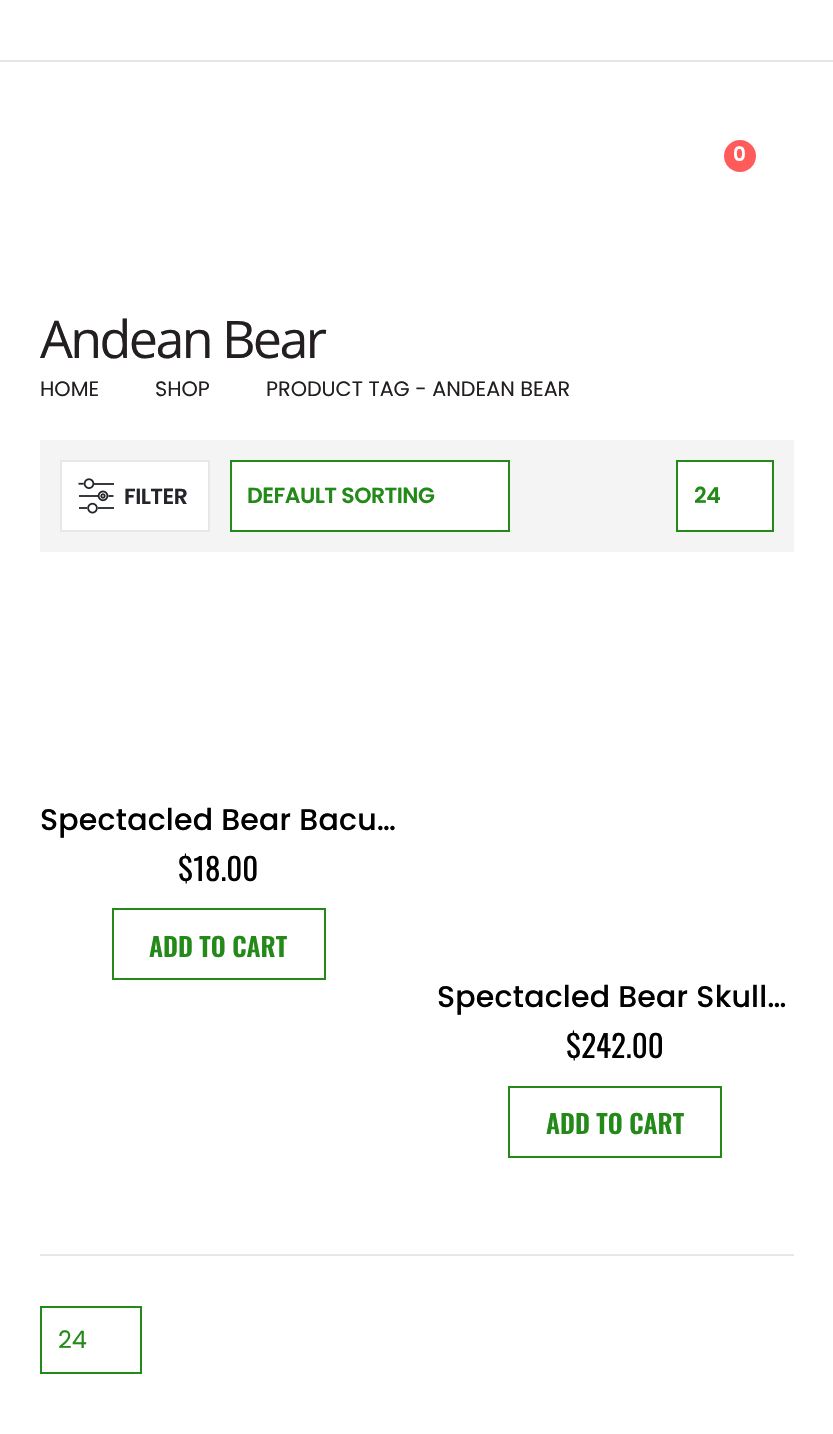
#include "include/core/SkBlurTypes.h"
#include "include/core/SkCanvas.h"
#include "include/core/SkData.h"
#include "include/core/SkFont.h"
#include "include/core/SkFontMgr.h"
#include "include/core/SkImage.h"
#include "include/core/SkMaskFilter.h"
#include "include/core/SkPaint.h"
#include "include/core/SkPathBuilder.h"
#include "include/core/SkTextBlob.h"
#include "include/effects/SkDashPathEffect.h"
#include "include/effects/SkGradientShader.h"
#include "include/utils/SkParsePath.h"

extern sk_sp<SkFontMgr> fontMgr;

void draw(SkCanvas* canvas) {
  SkPaint p;
  p.setAntiAlias(true);
  auto spacedText = [&](const char* s, float x, float y, const SkFont& font, const SkPaint& ink, float letter, float word) {
    std::vector<SkGlyphID> glyphs(font.countText(s, strlen(s), SkTextEncoding::kUTF8));
    std::vector<float> xs(glyphs.size());
    font.textToGlyphs(s, strlen(s), SkTextEncoding::kUTF8, glyphs);
    font.getXPos(glyphs, xs, x);
    float extra = 0;
    for (size_t i = 0; i < glyphs.size(); i++) {
      xs[i] += extra;
      extra += letter + word * (glyphs[i] == font.unicharToGlyph(' '));
    }
    canvas->drawTextBlob(SkTextBlob::MakeFromPosHGlyphs(glyphs, xs, y, font), 0, 0, ink);
  };
  canvas->clear(SK_ColorWHITE);
  p.setColor(SkColorSetRGB(227, 231, 232));
  canvas->drawRect(SkRect::MakeLTRB(0, 60, 833, 62), p);
  p.setColor(SkColorSetRGB(255, 91, 91));
  canvas->drawCircle(740, 156, 16, p);
  p.setColor(SkColorSetRGB(244, 244, 244));
  canvas->drawRect(SkRect::MakeLTRB(40, 440, 794, 552), p);
  p.setColor(SK_ColorWHITE);
  canvas->drawRect(SkRect::MakeLTRB(61, 461, 209, 531), p);
  p.setStyle(SkPaint::kStroke_Style);
  p.setStrokeWidth(2);
  p.setColor(SkColorSetRGB(231, 231, 231));
  canvas->drawRect(SkRect::MakeLTRB(61, 461, 209, 531), p);
  canvas->drawImageRect(SkImages::DeferredFromEncodedData(SkData::MakeFromFileName("images/1.png")), SkRect::MakeLTRB(78, 478, 114, 514), SkSamplingOptions());
  p.setStyle(SkPaint::kFill_Style);
  p.setColor(SK_ColorWHITE);
  canvas->drawRect(SkRect::MakeLTRB(231, 461, 509, 531), p);
  p.setStyle(SkPaint::kStroke_Style);
  p.setColor(SkColorSetRGB(35, 137, 24));
  canvas->drawRect(SkRect::MakeLTRB(231, 461, 509, 531), p);
  p.setStyle(SkPaint::kFill_Style);
  p.setColor(SK_ColorWHITE);
  canvas->drawRect(SkRect::MakeLTRB(677, 461, 773, 531), p);
  p.setStyle(SkPaint::kStroke_Style);
  p.setColor(SkColorSetRGB(35, 137, 24));
  canvas->drawRect(SkRect::MakeLTRB(677, 461, 773, 531), p);
  canvas->drawRect(SkRect::MakeLTRB(113, 909, 325, 979), p);
  canvas->drawRect(SkRect::MakeLTRB(509, 1087, 721, 1157), p);
  p.setStyle(SkPaint::kFill_Style);
  p.setColor(SkColorSetRGB(231, 231, 231));
  canvas->drawRect(SkRect::MakeLTRB(40, 1254, 794, 1256), p);
  p.setStyle(SkPaint::kStroke_Style);
  p.setColor(SkColorSetRGB(35, 137, 24));
  canvas->drawRect(SkRect::MakeLTRB(41, 1307, 141, 1373), p);
  SkFont font1(fontMgr->matchFamilyStyle("Poppins", SkFontStyle(600, SkFontStyle::kNormal_Width, SkFontStyle::kUpright_Slant)), 20);
  font1.setSubpixel(true);
  p.setStyle(SkPaint::kFill_Style);
  p.setColor(SK_ColorWHITE);
  canvas->drawString("0", 733, 161, font1, p);
  SkFont font2(fontMgr->matchFamilyStyle("Open Sans", SkFontStyle::Normal()), 52);
  font2.setSubpixel(true);
  p.setColor(SkColorSetRGB(35, 31, 32));
  spacedText("Andean Bear", 40, 358, font2, p, -2.6f, 0);
  SkFont font3(fontMgr->matchFamilyStyle("Poppins", SkFontStyle::Normal()), 20.75f);
  font3.setSubpixel(true);
  canvas->drawString("HOME", 40, 396, font3, p);
  canvas->drawString("SHOP", 155, 396, font3, p);
  canvas->drawString("PRODUCT TAG - ANDEAN BEAR", 266, 396, font3, p);
  SkFont font4(fontMgr->matchFamilyStyle("Poppins", SkFontStyle(600, SkFontStyle::kNormal_Width, SkFontStyle::kUpright_Slant)), 22);
  font4.setSubpixel(true);
  p.setColor(SkColorSetRGB(34, 37, 41));
  spacedText("FILTER", 124, 504, font4, p, -0.5f, 0);
  p.setColor(SkColorSetRGB(35, 137, 24));
  spacedText("DEFAULT SORTING", 247, 503, font4, p, -0.5f, 0);
  spacedText("24", 694, 503, font4, p, -0.5f, 0);
  SkFont font5(fontMgr->matchFamilyStyle("Poppins", SkFontStyle(500, SkFontStyle::kNormal_Width, SkFontStyle::kUpright_Slant)), 30);
  font5.setSubpixel(true);
  p.setColor(SK_ColorBLACK);
  spacedText("Spectacled Bear Bacu…", 40, 830, font5, p, 0.2f, 0);
  SkFont font6(fontMgr->matchFamilyStyle("Oswald", SkFontStyle::Normal()), 31);
  font6.setSubpixel(true);
  canvas->drawString("$18.00", 178, 881, font6, p);
  SkFont font7(fontMgr->matchFamilyStyle("Oswald", SkFontStyle(600, SkFontStyle::kNormal_Width, SkFontStyle::kUpright_Slant)), 26);
  font7.setSubpixel(true);
  p.setColor(SkColorSetRGB(35, 137, 24));
  canvas->drawString("ADD TO CART", 149, 957, font7, p);
  p.setColor(SK_ColorBLACK);
  spacedText("Spectacled Bear Skull…", 437, 1007, font5, p, 0.2f, 0);
  canvas->drawString("$242.00", 566, 1058, font6, p);
  p.setColor(SkColorSetRGB(35, 137, 24));
  canvas->drawString("ADD TO CART", 546, 1134, font7, p);
  SkFont font8(fontMgr->matchFamilyStyle("Poppins", SkFontStyle::Normal()), 24);
  font8.setSubpixel(true);
  canvas->drawString("24", 58, 1348, font8, p);
}
